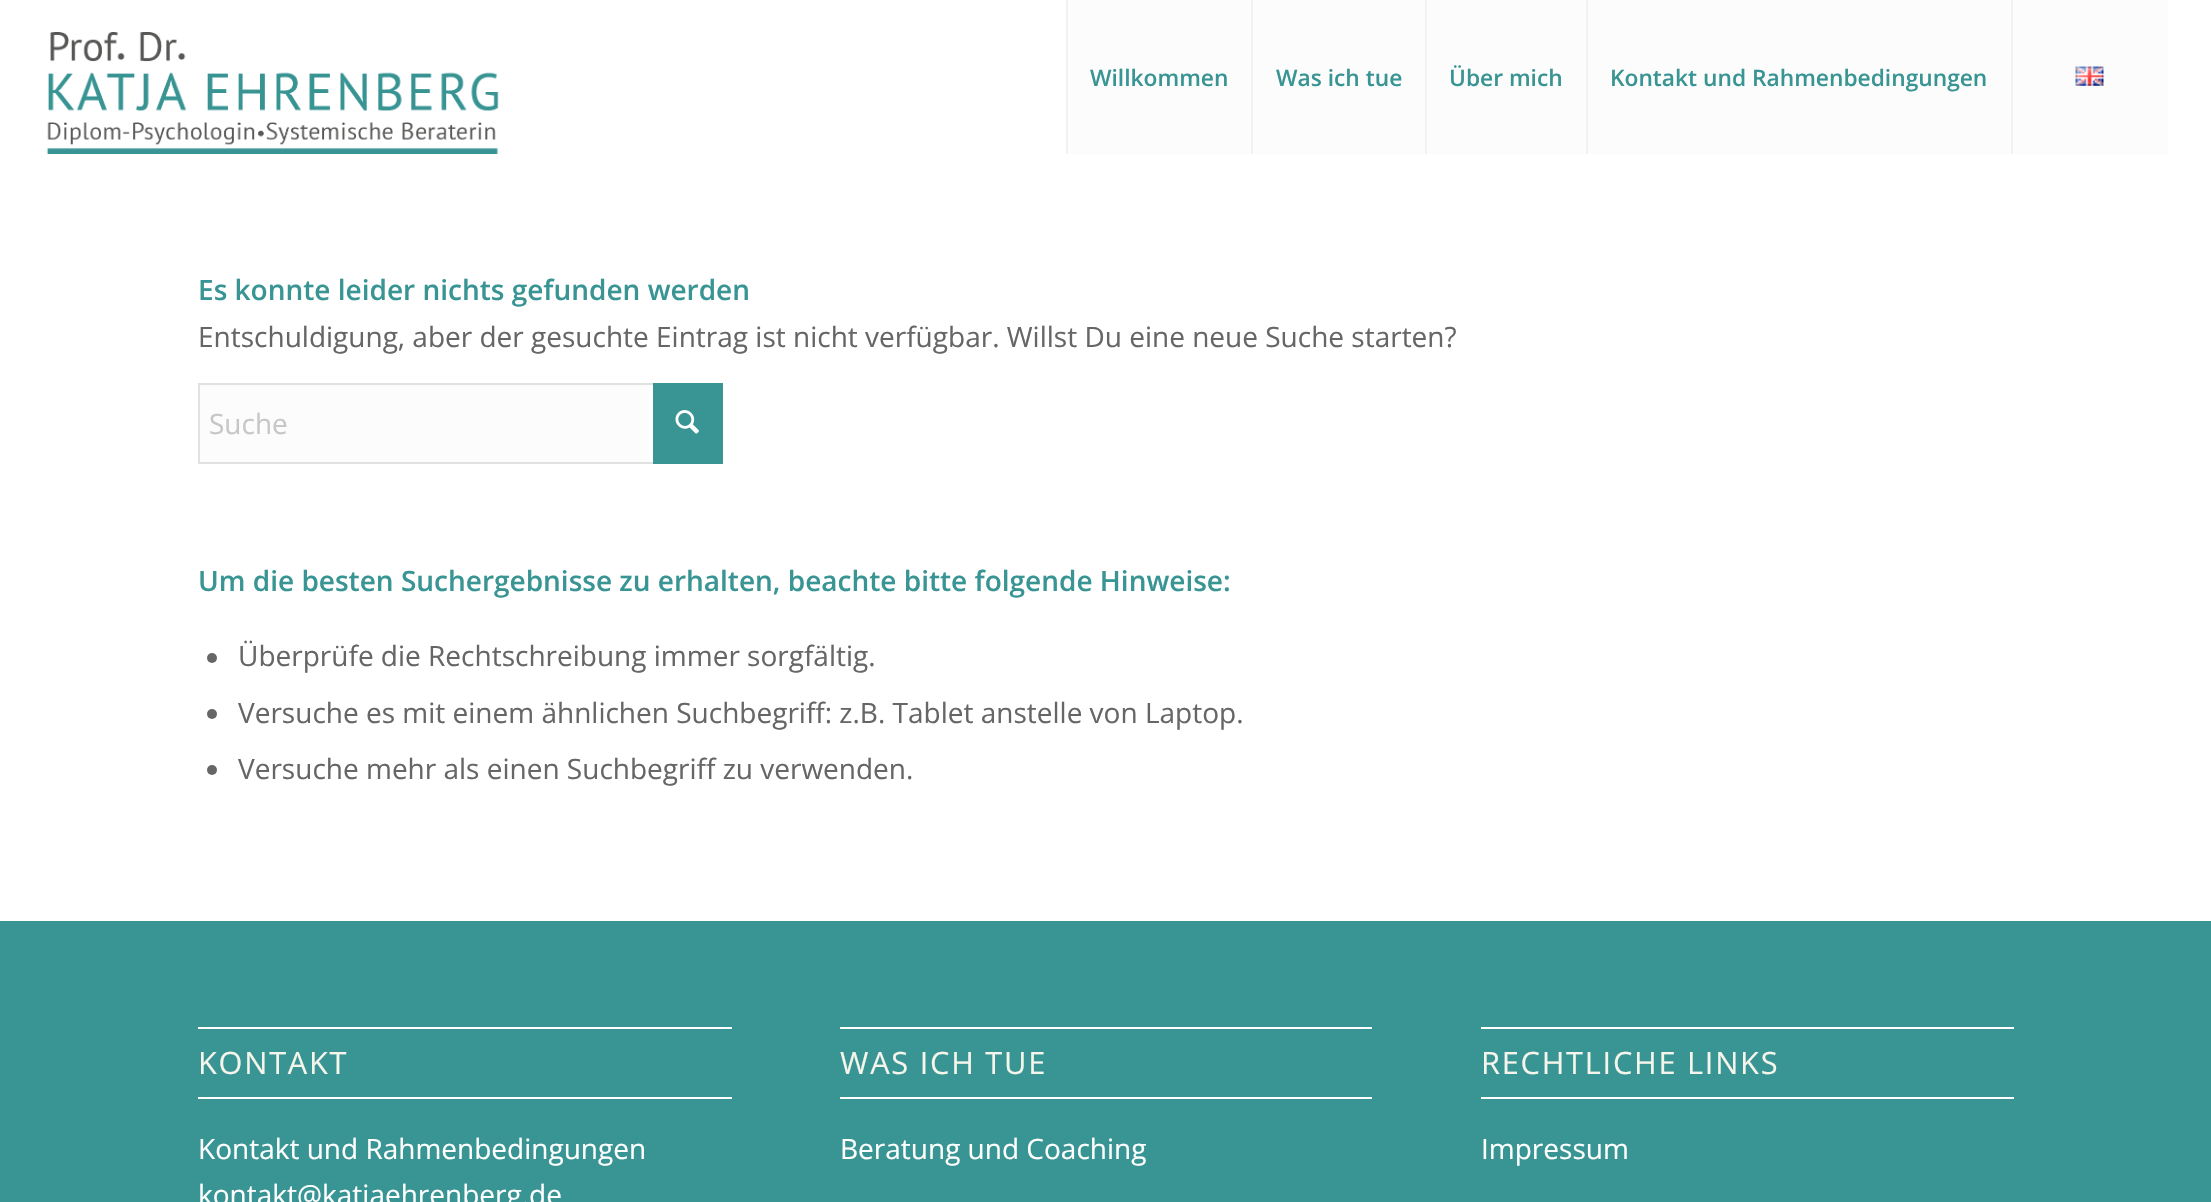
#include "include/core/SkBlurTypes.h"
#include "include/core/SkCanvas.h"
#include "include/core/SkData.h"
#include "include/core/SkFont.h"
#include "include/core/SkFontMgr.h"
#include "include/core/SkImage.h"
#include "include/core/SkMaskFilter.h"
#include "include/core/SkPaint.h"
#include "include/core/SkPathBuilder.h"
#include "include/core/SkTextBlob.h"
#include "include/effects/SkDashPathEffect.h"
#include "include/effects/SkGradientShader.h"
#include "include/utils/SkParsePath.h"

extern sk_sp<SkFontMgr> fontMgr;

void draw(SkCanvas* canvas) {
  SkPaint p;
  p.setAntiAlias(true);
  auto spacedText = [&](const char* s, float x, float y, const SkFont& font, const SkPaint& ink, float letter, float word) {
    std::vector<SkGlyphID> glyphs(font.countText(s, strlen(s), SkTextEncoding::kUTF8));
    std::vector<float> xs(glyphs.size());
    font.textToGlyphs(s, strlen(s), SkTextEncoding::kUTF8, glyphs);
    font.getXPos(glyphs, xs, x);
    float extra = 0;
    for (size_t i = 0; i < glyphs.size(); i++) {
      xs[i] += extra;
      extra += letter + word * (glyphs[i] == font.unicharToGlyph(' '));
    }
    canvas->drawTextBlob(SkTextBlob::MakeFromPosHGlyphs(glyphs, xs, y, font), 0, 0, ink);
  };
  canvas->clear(SK_ColorWHITE);
  canvas->drawImageRect(SkImages::DeferredFromEncodedData(SkData::MakeFromFileName("images/1.png")), SkRect::MakeLTRB(46, 32, 499, 154), SkSamplingOptions());
  p.setColor(SkColorSetRGB(252, 252, 252));
  canvas->drawRect(SkRect::MakeLTRB(1068, 0, 1251, 154), p);
  p.setColor(SkColorSetRGB(242, 242, 242));
  canvas->drawRect(SkRect::MakeLTRB(1066, 0, 1068, 154), p);
  p.setColor(SkColorSetRGB(252, 252, 252));
  canvas->drawRect(SkRect::MakeLTRB(1253, 0, 1425, 154), p);
  p.setColor(SkColorSetRGB(242, 242, 242));
  canvas->drawRect(SkRect::MakeLTRB(1251, 0, 1253, 154), p);
  p.setColor(SkColorSetRGB(252, 252, 252));
  canvas->drawRect(SkRect::MakeLTRB(1427, 0, 1586, 154), p);
  p.setColor(SkColorSetRGB(242, 242, 242));
  canvas->drawRect(SkRect::MakeLTRB(1425, 0, 1427, 154), p);
  p.setColor(SkColorSetRGB(252, 252, 252));
  canvas->drawRect(SkRect::MakeLTRB(1588, 0, 2011, 154), p);
  p.setColor(SkColorSetRGB(242, 242, 242));
  canvas->drawRect(SkRect::MakeLTRB(1586, 0, 1588, 154), p);
  p.setColor(SkColorSetRGB(252, 252, 252));
  canvas->drawRect(SkRect::MakeLTRB(2013, 0, 2168, 154), p);
  p.setColor(SkColorSetRGB(242, 242, 242));
  canvas->drawRect(SkRect::MakeLTRB(2011, 0, 2013, 154), p);
  canvas->drawImageRect(SkImages::DeferredFromEncodedData(SkData::MakeFromFileName("images/2.png")), SkRect::MakeLTRB(2075, 66, 2104, 86), SkSamplingOptions());
  p.setColor(SkColorSetRGB(252, 252, 252));
  canvas->drawRect(SkRect::MakeLTRB(200, 385, 653, 462), p);
  p.setStyle(SkPaint::kStroke_Style);
  p.setStrokeWidth(2);
  p.setColor(SkColorSetRGB(225, 225, 225));
  canvas->drawRect(SkRect::MakeLTRB(199, 384, 722, 463), p);
  p.setStyle(SkPaint::kFill_Style);
  p.setColor(SkColorSetRGB(57, 148, 148));
  canvas->drawRect(SkRect::MakeLTRB(653, 383, 723, 464), p);
  canvas->drawImageRect(SkImages::DeferredFromEncodedData(SkData::MakeFromFileName("images/3.png")), SkRect::MakeLTRB(675, 410, 699, 434), SkSamplingOptions());
  p.setColor(SkColorSetRGB(102, 102, 102));
  canvas->drawCircle(212, 658, 5, p);
  canvas->drawCircle(212, 714, 5, p);
  canvas->drawCircle(212, 770, 5, p);
  p.setColor(SkColorSetRGB(57, 148, 148));
  canvas->drawRect(SkRect::MakeLTRB(0, 921, 2211, 1202), p);
  p.setColor(SK_ColorWHITE);
  canvas->drawRect(SkRect::MakeLTRB(198, 1027, 732, 1029), p);
  canvas->drawRect(SkRect::MakeLTRB(198, 1097, 732, 1099), p);
  canvas->drawRect(SkRect::MakeLTRB(840, 1027, 1372, 1029), p);
  canvas->drawRect(SkRect::MakeLTRB(840, 1097, 1372, 1099), p);
  canvas->drawRect(SkRect::MakeLTRB(1481, 1027, 2014, 1029), p);
  canvas->drawRect(SkRect::MakeLTRB(1481, 1097, 2014, 1099), p);
  SkFont font1(fontMgr->matchFamilyStyle("Open Sans", SkFontStyle(600, SkFontStyle::kNormal_Width, SkFontStyle::kUpright_Slant)), 22.75f);
  font1.setSubpixel(true);
  p.setColor(SkColorSetRGB(57, 148, 148));
  canvas->drawString("Willkommen", 1090, 86, font1, p);
  canvas->drawString("Was ich tue", 1276, 86, font1, p);
  canvas->drawString("Über mich", 1449, 86, font1, p);
  canvas->drawString("Kontakt und Rahmenbedingungen", 1610, 86, font1, p);
  SkFont font2(fontMgr->matchFamilyStyle("Open Sans", SkFontStyle(600, SkFontStyle::kNormal_Width, SkFontStyle::kUpright_Slant)), 28);
  font2.setSubpixel(true);
  canvas->drawString("Es konnte leider nichts gefunden werden", 198, 300, font2, p);
  SkFont font3(fontMgr->matchFamilyStyle("Open Sans", SkFontStyle::Normal()), 28);
  font3.setSubpixel(true);
  p.setColor(SkColorSetRGB(102, 102, 102));
  canvas->drawString("Entschuldigung, aber der gesuchte Eintrag ist nicht verfügbar. Willst Du eine neue Suche starten?", 198, 347, font3, p);
  p.setColor(SkColorSetRGB(199, 199, 199));
  canvas->drawString("Suche", 209, 434, font3, p);
  p.setColor(SkColorSetRGB(57, 148, 148));
  canvas->drawString("Um die besten Suchergebnisse zu erhalten, beachte bitte folgende Hinweise:", 198, 591, font2, p);
  p.setColor(SkColorSetRGB(102, 102, 102));
  canvas->drawString("Überprüfe die Rechtschreibung immer sorgfältig.", 238, 666, font3, p);
  canvas->drawString("Versuche es mit einem ähnlichen Suchbegriff: z.B. Tablet anstelle von Laptop.", 238, 723, font3, p);
  canvas->drawString("Versuche mehr als einen Suchbegriff zu verwenden.", 238, 779, font3, p);
  SkFont font4(fontMgr->matchFamilyStyle("Open Sans", SkFontStyle::Normal()), 30.75f);
  font4.setSubpixel(true);
  p.setColor(SkColorSetRGB(245, 245, 235));
  spacedText("KONTAKT", 198, 1074, font4, p, 1.75f, 0);
  p.setColor(SK_ColorWHITE);
  canvas->drawString("Kontakt und Rahmenbedingungen", 198, 1159, font3, p);
  canvas->drawString("kontakt@katjaehrenberg.de", 198, 1205, font3, p);
  p.setColor(SkColorSetRGB(245, 245, 235));
  spacedText("WAS ICH TUE", 840, 1074, font4, p, 1.75f, 0);
  p.setColor(SK_ColorWHITE);
  canvas->drawString("Beratung und Coaching", 840, 1159, font3, p);
  p.setColor(SkColorSetRGB(245, 245, 235));
  spacedText("RECHTLICHE LINKS", 1481, 1074, font4, p, 1.75f, 0);
  p.setColor(SK_ColorWHITE);
  canvas->drawString("Impressum", 1481, 1159, font3, p);
}
